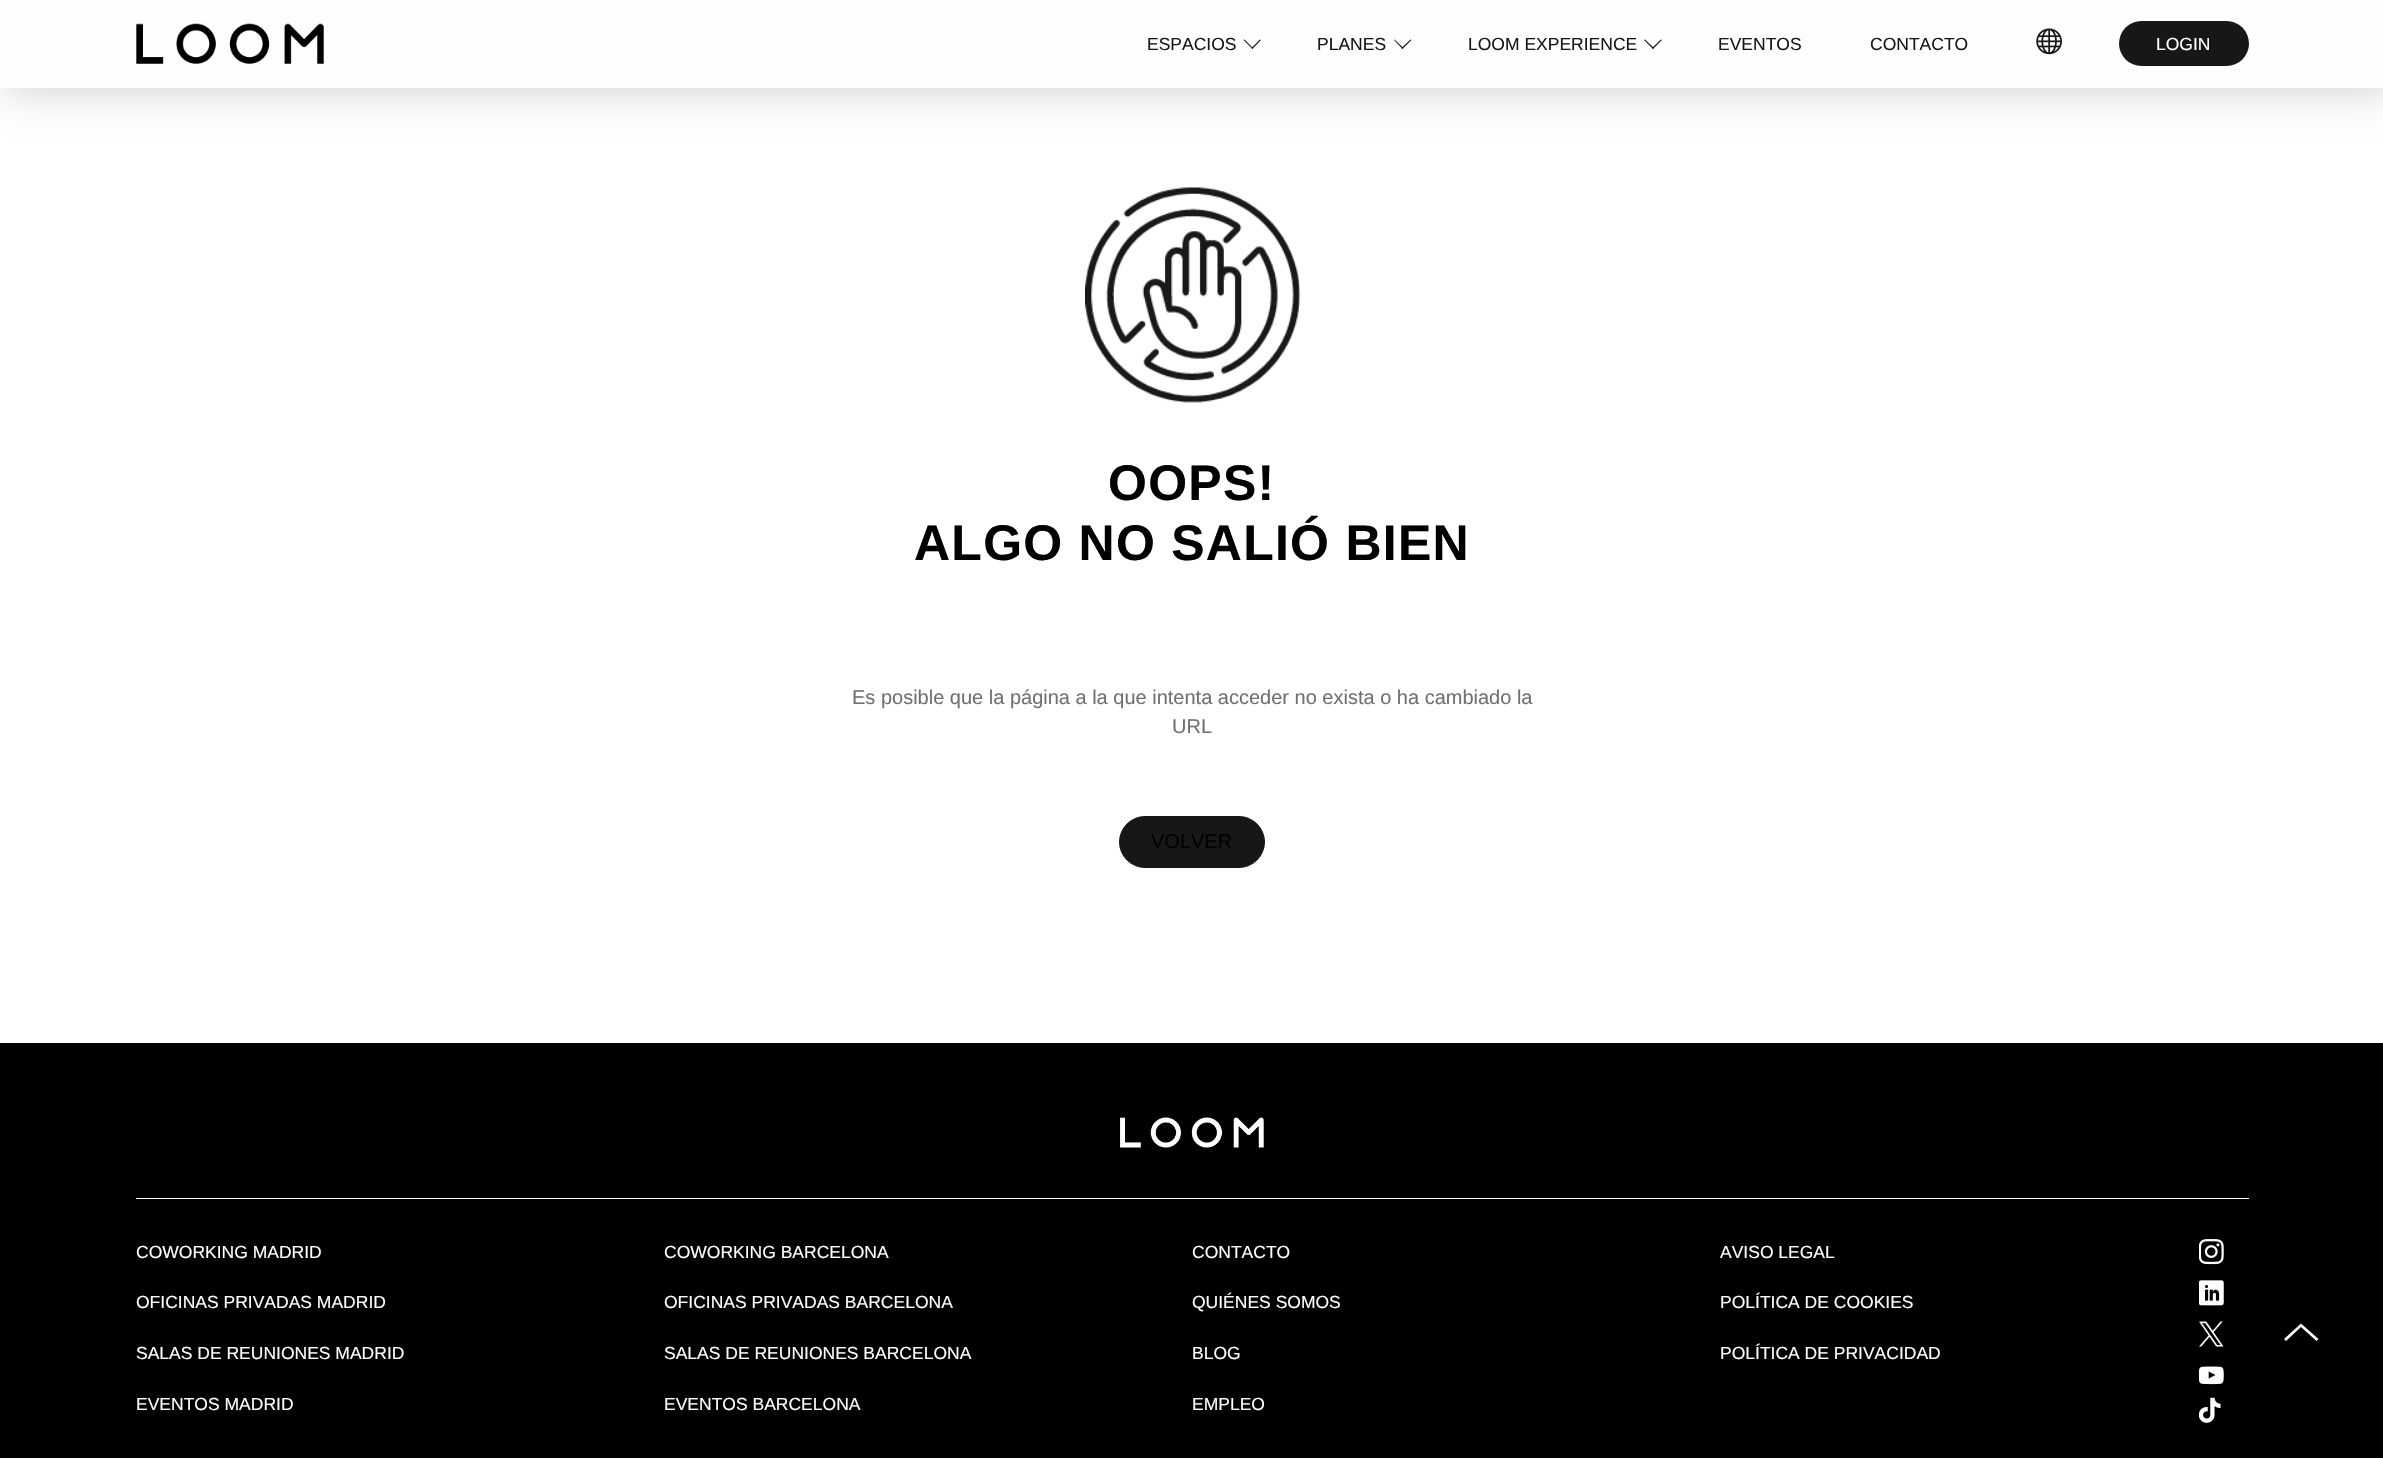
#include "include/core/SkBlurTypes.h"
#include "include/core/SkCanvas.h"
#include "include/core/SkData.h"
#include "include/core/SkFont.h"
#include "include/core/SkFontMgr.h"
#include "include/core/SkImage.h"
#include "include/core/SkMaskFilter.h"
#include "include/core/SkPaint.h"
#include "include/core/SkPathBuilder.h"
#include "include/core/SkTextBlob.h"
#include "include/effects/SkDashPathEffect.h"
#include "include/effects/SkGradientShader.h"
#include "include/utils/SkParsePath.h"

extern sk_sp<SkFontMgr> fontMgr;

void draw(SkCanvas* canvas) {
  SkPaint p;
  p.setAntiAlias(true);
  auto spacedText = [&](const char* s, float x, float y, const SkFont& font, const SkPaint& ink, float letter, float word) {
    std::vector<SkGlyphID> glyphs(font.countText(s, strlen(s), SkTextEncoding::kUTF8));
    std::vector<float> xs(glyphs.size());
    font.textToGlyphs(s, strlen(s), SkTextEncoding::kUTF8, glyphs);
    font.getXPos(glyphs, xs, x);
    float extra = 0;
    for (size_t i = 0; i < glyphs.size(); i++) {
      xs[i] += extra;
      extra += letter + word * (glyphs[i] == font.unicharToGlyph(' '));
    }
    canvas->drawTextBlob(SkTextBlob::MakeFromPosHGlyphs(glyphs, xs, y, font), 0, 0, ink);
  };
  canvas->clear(SK_ColorWHITE);
  p.setColor(SkColorSetARGB(41, 0, 0, 0));
  p.setMaskFilter(SkMaskFilter::MakeBlur(kNormal_SkBlurStyle, 19));
  canvas->drawRect(SkRect::MakeLTRB(6, 6, 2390, 94), p);
  p.setMaskFilter(nullptr);
  p.setColor(SkColorSetRGB(254, 254, 254));
  canvas->drawRect(SkRect::MakeLTRB(0, 0, 2383, 88), p);
  canvas->drawImageRect(SkImages::DeferredFromEncodedData(SkData::MakeFromFileName("images/1.png")), SkRect::MakeLTRB(136, 23, 324, 64), SkSamplingOptions());
  p.setColor(SkColorSetRGB(23, 23, 23));
  canvas->drawPath(SkPathBuilder().moveTo(1260, 39.5f).lineTo(1261, 40).lineTo(1252.5f, 49).lineTo(1251.5f, 48).close().detach(), p);
  canvas->drawPath(SkPathBuilder().moveTo(1244.5f, 39.5f).lineTo(1253, 48).lineTo(1252.5f, 49).lineTo(1243.5f, 40).close().detach(), p);
  canvas->drawPath(SkPathBuilder().moveTo(1410.5f, 39.5f).lineTo(1411.5f, 40).lineTo(1402.5f, 49).lineTo(1401.5f, 48).close().detach(), p);
  canvas->drawPath(SkPathBuilder().moveTo(1394.5f, 39.5f).lineTo(1403.5f, 48).lineTo(1402.5f, 49).lineTo(1394, 40).close().detach(), p);
  canvas->drawPath(SkPathBuilder().moveTo(1661, 39.5f).lineTo(1662, 40).lineTo(1653, 49).lineTo(1652, 48).close().detach(), p);
  canvas->drawPath(SkPathBuilder().moveTo(1645, 39.5f).lineTo(1654, 48).lineTo(1653, 49).lineTo(1644, 40).close().detach(), p);
  canvas->drawImageRect(SkImages::DeferredFromEncodedData(SkData::MakeFromFileName("images/2.png")), SkRect::MakeLTRB(2036, 28, 2062, 55), SkSamplingOptions());
  canvas->drawRoundRect(SkRect::MakeLTRB(2119, 21, 2249, 66), 22.5f, 22.5f, p);
  canvas->drawImageRect(SkImages::DeferredFromEncodedData(SkData::MakeFromFileName("images/3.png")), SkRect::MakeLTRB(1085, 187, 1300, 403), SkSamplingOptions());
  canvas->drawRoundRect(SkRect::MakeLTRB(1119.5f, 816.5f, 1264.5f, 867.5f), 25.5f, 25.5f, p);
  p.setStyle(SkPaint::kStroke_Style);
  p.setStrokeWidth(1);
  canvas->drawRoundRect(SkRect::MakeLTRB(1119.5f, 816.5f, 1264.5f, 867.5f), 25.5f, 25.5f, p);
  p.setStyle(SkPaint::kFill_Style);
  p.setColor(SK_ColorBLACK);
  canvas->drawRect(SkRect::MakeLTRB(0, 1043, 2383, 1458), p);
  p.setColor(SkColorSetRGB(254, 254, 254));
  canvas->drawRect(SkRect::MakeLTRB(136, 1198, 2249, 1199), p);
  canvas->drawImageRect(SkImages::DeferredFromEncodedData(SkData::MakeFromFileName("images/4.png")), SkRect::MakeLTRB(1120, 1117, 1264, 1148), SkSamplingOptions());
  canvas->drawImageRect(SkImages::DeferredFromEncodedData(SkData::MakeFromFileName("images/5.png")), SkRect::MakeLTRB(2199, 1239, 2224, 1265), SkSamplingOptions());
  canvas->drawImageRect(SkImages::DeferredFromEncodedData(SkData::MakeFromFileName("images/6.png")), SkRect::MakeLTRB(2199, 1280, 2224, 1306), SkSamplingOptions());
  canvas->drawImageRect(SkImages::DeferredFromEncodedData(SkData::MakeFromFileName("images/7.png")), SkRect::MakeLTRB(2199, 1321, 2224, 1347), SkSamplingOptions());
  canvas->drawImageRect(SkImages::DeferredFromEncodedData(SkData::MakeFromFileName("images/8.png")), SkRect::MakeLTRB(2199, 1366, 2224, 1385), SkSamplingOptions());
  canvas->drawImageRect(SkImages::DeferredFromEncodedData(SkData::MakeFromFileName("images/9.png")), SkRect::MakeLTRB(2199, 1397, 2221, 1423), SkSamplingOptions());
  canvas->drawPath(SkPathBuilder().moveTo(2286, 1341).lineTo(2301, 1327).lineTo(2316.5f, 1341).lineTo(2318.5f, 1339).lineTo(2301, 1323.5f).lineTo(2284, 1339).close().detach(), p);
  SkFont font1(fontMgr->matchFamilyStyle("Liberation Sans", SkFontStyle::Normal()), 17.5f);
  font1.setSubpixel(true);
  p.setColor(SkColorSetRGB(23, 23, 23));
  canvas->drawString("ESPACIOS", 1147, 50, font1, p);
  canvas->drawString("PLANES", 1317, 50, font1, p);
  canvas->drawString("LOOM EXPERIENCE", 1468, 50, font1, p);
  canvas->drawString("EVENTOS", 1718, 50, font1, p);
  canvas->drawString("CONTACTO", 1870, 50, font1, p);
  p.setColor(SkColorSetRGB(254, 254, 254));
  canvas->drawString("LOGIN", 2156, 50, font1, p);
  SkFont font2(fontMgr->matchFamilyStyle("Liberation Sans", SkFontStyle::Bold()), 50);
  font2.setSubpixel(true);
  p.setColor(SK_ColorBLACK);
  spacedText("OOPS!", 1108, 500, font2, p, 1.25f, 0);
  spacedText("ALGO NO SALIÓ BIEN", 914, 560, font2, p, 1.25f, 0);
  SkFont font3(fontMgr->matchFamilyStyle("Liberation Sans", SkFontStyle::Normal()), 20);
  font3.setSubpixel(true);
  p.setColor(SkColorSetRGB(112, 112, 112));
  canvas->drawString("Es posible que la página a la que intenta acceder no exista o ha cambiado la", 852, 704, font3, p);
  canvas->drawString("URL", 1172, 733, font3, p);
  p.setColor(SK_ColorBLACK);
  canvas->drawString("VOLVER", 1151, 848, font3, p);
  p.setColor(SkColorSetRGB(254, 254, 254));
  canvas->drawString("COWORKING MADRID", 136, 1258, font1, p);
  canvas->drawString("OFICINAS PRIVADAS MADRID", 136, 1308, font1, p);
  canvas->drawString("SALAS DE REUNIONES MADRID", 136, 1359, font1, p);
  canvas->drawString("EVENTOS MADRID", 136, 1410, font1, p);
  canvas->drawString("COWORKING BARCELONA", 664, 1258, font1, p);
  canvas->drawString("OFICINAS PRIVADAS BARCELONA", 664, 1308, font1, p);
  canvas->drawString("SALAS DE REUNIONES BARCELONA", 664, 1359, font1, p);
  canvas->drawString("EVENTOS BARCELONA", 664, 1410, font1, p);
  canvas->drawString("CONTACTO", 1192, 1258, font1, p);
  canvas->drawString("QUIÉNES SOMOS", 1192, 1308, font1, p);
  canvas->drawString("BLOG", 1192, 1359, font1, p);
  canvas->drawString("EMPLEO", 1192, 1410, font1, p);
  canvas->drawString("AVISO LEGAL", 1720, 1258, font1, p);
  canvas->drawString("POLÍTICA DE COOKIES", 1720, 1308, font1, p);
  canvas->drawString("POLÍTICA DE PRIVACIDAD", 1720, 1359, font1, p);
}
